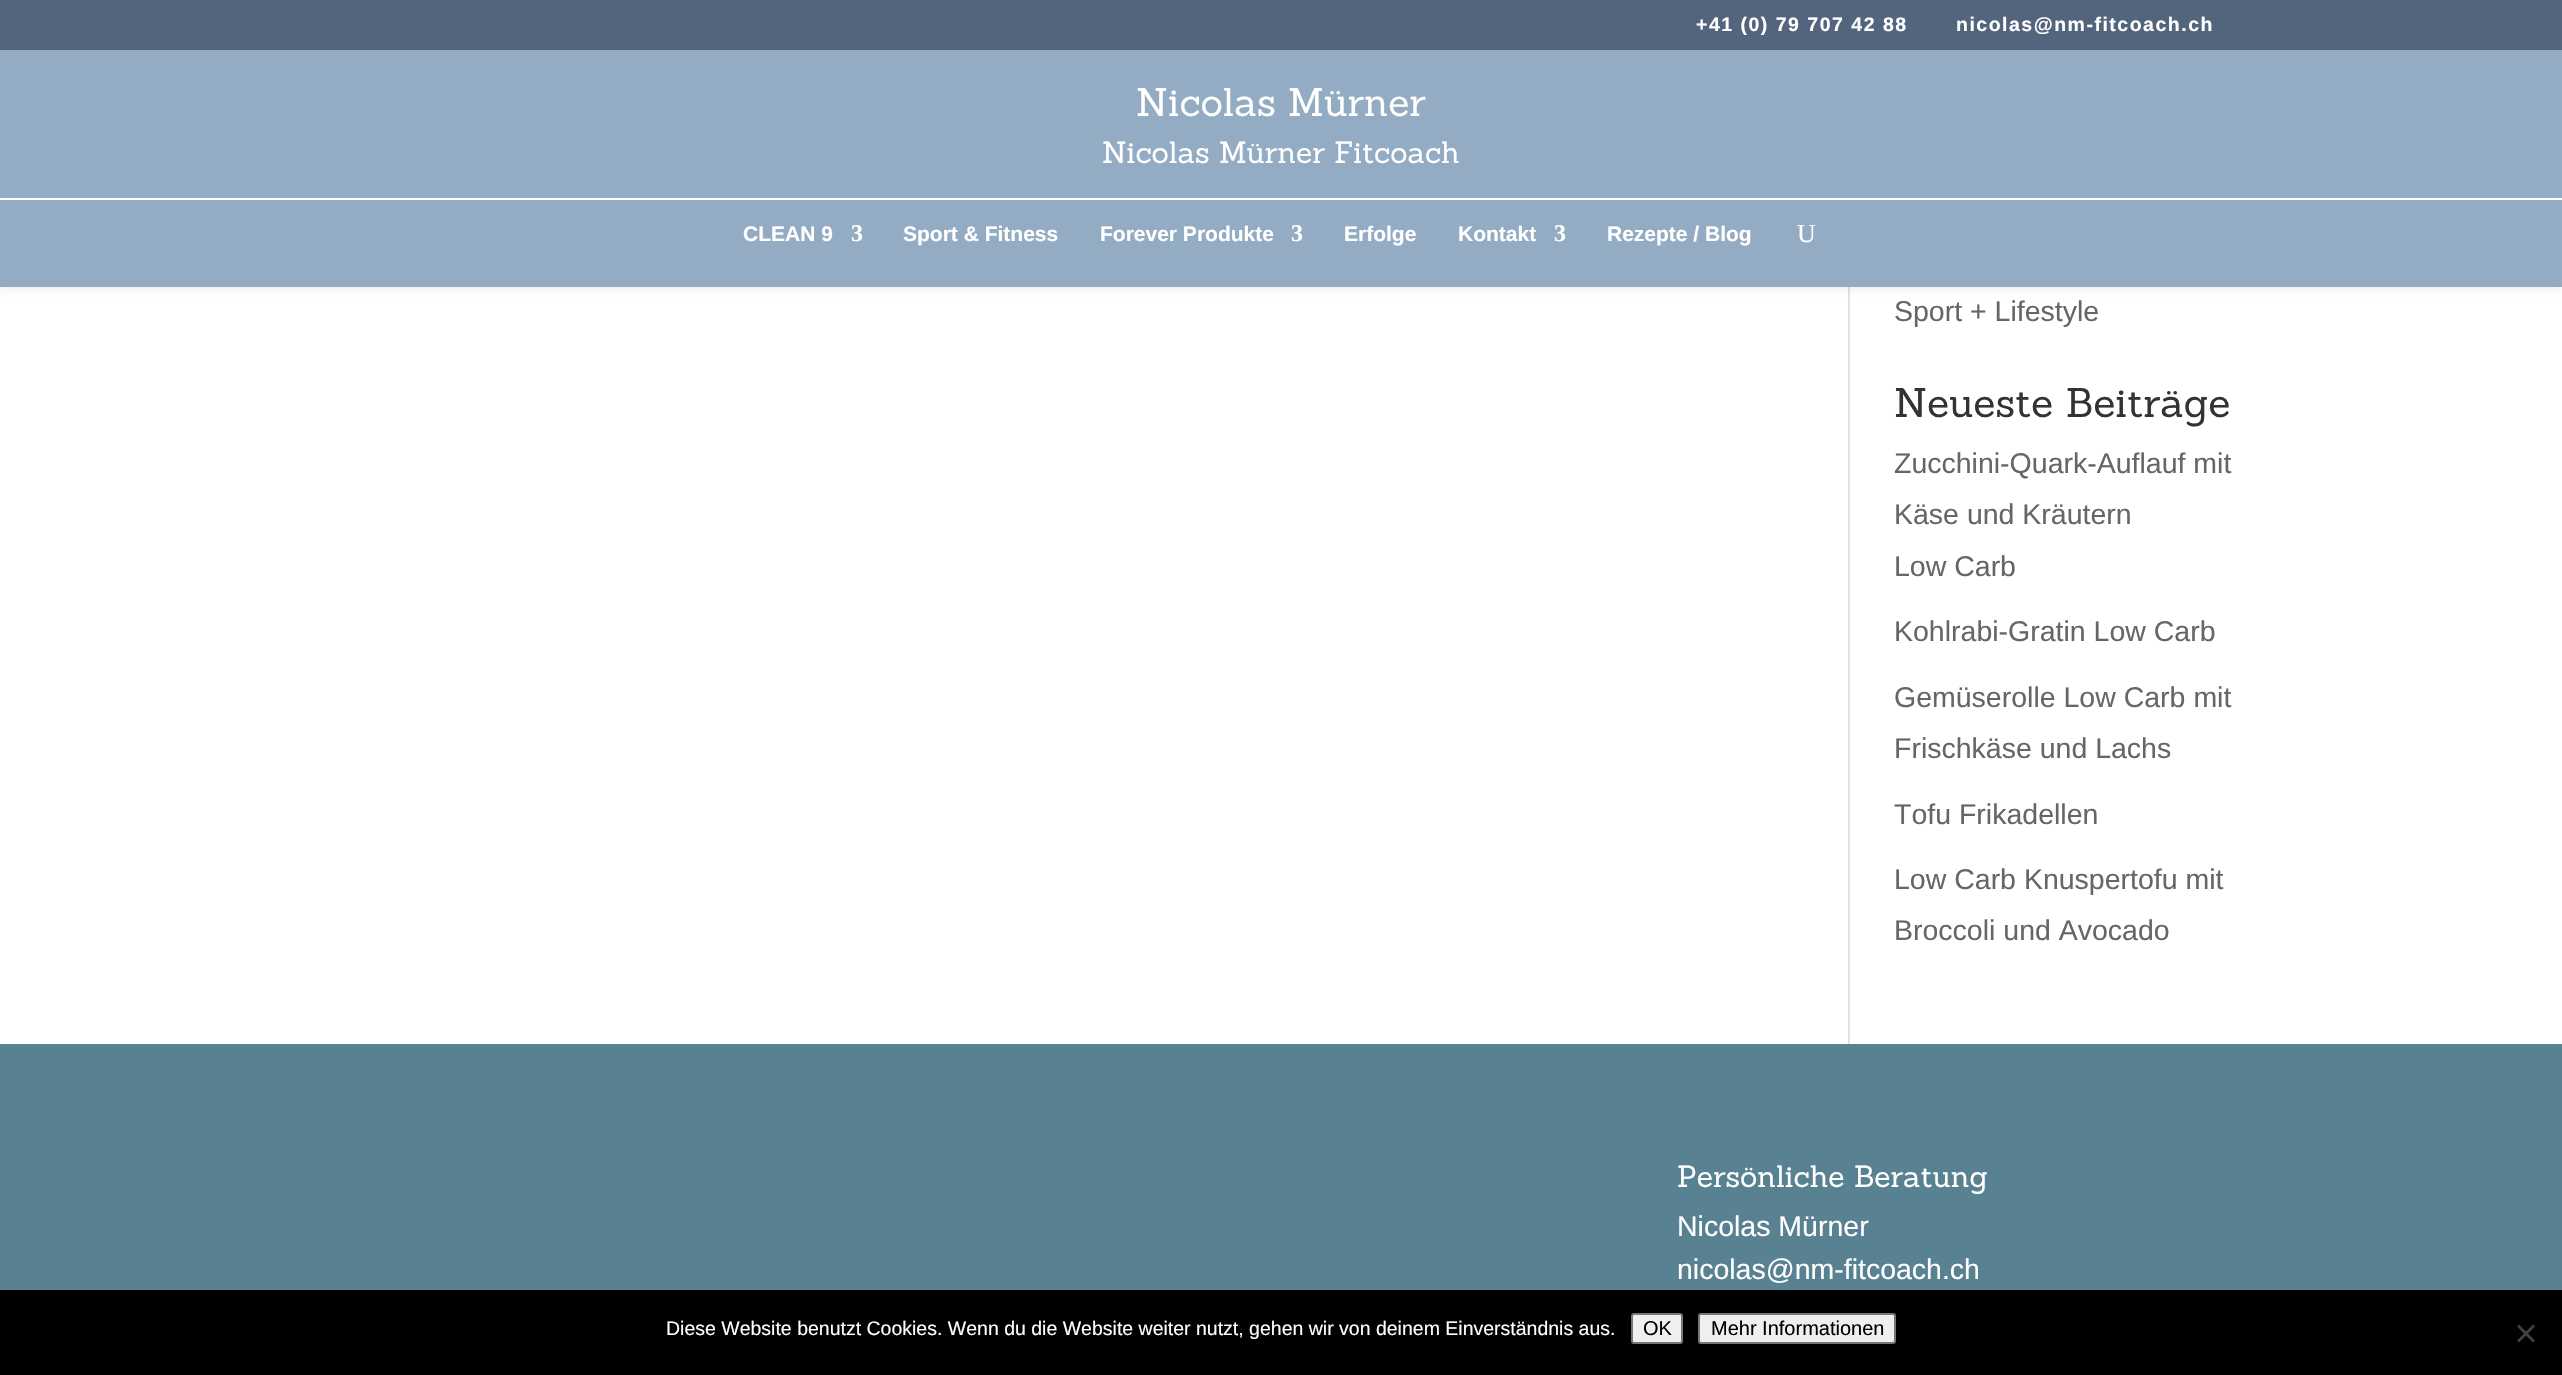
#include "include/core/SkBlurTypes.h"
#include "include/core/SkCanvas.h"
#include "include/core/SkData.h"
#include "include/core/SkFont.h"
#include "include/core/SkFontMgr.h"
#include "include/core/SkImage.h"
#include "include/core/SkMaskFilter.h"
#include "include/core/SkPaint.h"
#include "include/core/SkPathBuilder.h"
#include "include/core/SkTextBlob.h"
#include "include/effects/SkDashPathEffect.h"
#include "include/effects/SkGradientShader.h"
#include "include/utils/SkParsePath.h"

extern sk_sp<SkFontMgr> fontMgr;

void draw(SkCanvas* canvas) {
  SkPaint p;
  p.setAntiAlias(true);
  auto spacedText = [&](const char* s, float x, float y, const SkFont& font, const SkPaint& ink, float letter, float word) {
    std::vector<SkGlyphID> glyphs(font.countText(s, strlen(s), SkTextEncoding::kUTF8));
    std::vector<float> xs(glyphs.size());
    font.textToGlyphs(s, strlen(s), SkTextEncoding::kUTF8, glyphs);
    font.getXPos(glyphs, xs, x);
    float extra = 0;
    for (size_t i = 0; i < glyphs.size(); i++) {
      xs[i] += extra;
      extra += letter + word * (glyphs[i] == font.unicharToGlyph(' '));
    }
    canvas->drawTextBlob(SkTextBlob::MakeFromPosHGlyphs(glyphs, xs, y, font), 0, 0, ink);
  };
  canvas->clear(SK_ColorWHITE);
  p.setColor(SkColorSetRGB(226, 226, 226));
  canvas->drawRect(SkRect::MakeLTRB(1848, 287, 1850, 1044), p);
  p.setColor(SkColorSetARGB(26, 0, 0, 0));
  p.setMaskFilter(SkMaskFilter::MakeBlur(kNormal_SkBlurStyle, 5));
  canvas->drawRect(SkRect::MakeLTRB(0, 50, 2562, 287), p);
  p.setMaskFilter(nullptr);
  p.setColor(SkColorSetRGB(83, 101, 124));
  canvas->drawRect(SkRect::MakeLTRB(0, 0, 2562, 50), p);
  p.setColor(SkColorSetRGB(147, 172, 196));
  canvas->drawRect(SkRect::MakeLTRB(0, 50, 2562, 287), p);
  p.setColor(SK_ColorWHITE);
  canvas->drawRect(SkRect::MakeLTRB(0, 198, 2562, 200), p);
  p.setColor(SkColorSetRGB(88, 129, 145));
  canvas->drawRect(SkRect::MakeLTRB(0, 1044, 2562, 1290), p);
  p.setColor(SK_ColorBLACK);
  canvas->drawRect(SkRect::MakeLTRB(0, 1290, 2562, 1375), p);
  p.setColor(SkColorSetRGB(239, 239, 239));
  canvas->drawRoundRect(SkRect::MakeLTRB(1632, 1314, 1682, 1343), 2, 2, p);
  p.setStyle(SkPaint::kStroke_Style);
  p.setStrokeWidth(2);
  p.setColor(SkColorSetRGB(118, 118, 118));
  canvas->drawRoundRect(SkRect::MakeLTRB(1632, 1314, 1682, 1343), 2, 2, p);
  p.setStyle(SkPaint::kFill_Style);
  p.setColor(SkColorSetRGB(239, 239, 239));
  canvas->drawRoundRect(SkRect::MakeLTRB(1699, 1314, 1895, 1343), 2, 2, p);
  p.setStyle(SkPaint::kStroke_Style);
  p.setColor(SkColorSetRGB(118, 118, 118));
  canvas->drawRoundRect(SkRect::MakeLTRB(1699, 1314, 1895, 1343), 2, 2, p);
  p.setStyle(SkPaint::kFill_Style);
  p.setColor(SkColorSetRGB(64, 64, 64));
  canvas->drawPath(SkPathBuilder().moveTo(2533, 1324.5f).lineTo(2535, 1326.5f).lineTo(2519, 1342.5f).lineTo(2517, 1340.5f).close().detach(), p);
  canvas->drawPath(SkPathBuilder().moveTo(2517, 1326.5f).lineTo(2519, 1324.5f).lineTo(2535, 1340.5f).lineTo(2533, 1342.5f).close().detach(), p);
  SkFont font1(fontMgr->matchFamilyStyle("Liberation Sans", SkFontStyle::Bold()), 19.5f);
  font1.setSubpixel(true);
  p.setColor(SK_ColorWHITE);
  spacedText("+41 (0) 79 707 42 88", 1696, 31, font1, p, 1.5f, 0);
  spacedText("nicolas@nm-fitcoach.ch", 1956, 31, font1, p, 1.5f, 0);
  SkFont font2(fontMgr->matchFamilyStyle("Sanchez", SkFontStyle::Normal()), 39);
  font2.setSubpixel(true);
  canvas->drawString("Nicolas Mürner", 1136, 116, font2, p);
  SkFont font3(fontMgr->matchFamilyStyle("Sanchez", SkFontStyle::Normal()), 30);
  font3.setSubpixel(true);
  canvas->drawString("Nicolas Mürner Fitcoach", 1102, 163, font3, p);
  SkFont font4(fontMgr->matchFamilyStyle("Liberation Sans", SkFontStyle::Bold()), 21);
  font4.setSubpixel(true);
  canvas->drawString("CLEAN 9", 743, 241, font4, p);
  SkFont font5(fontMgr->matchFamilyStyle("Liberation Serif", SkFontStyle::Bold()), 24);
  font5.setSubpixel(true);
  canvas->drawString("3", 851, 241, font5, p);
  canvas->drawString("Sport & Fitness", 903, 241, font4, p);
  canvas->drawString("Forever Produkte", 1100, 241, font4, p);
  canvas->drawString("3", 1291, 241, font5, p);
  canvas->drawString("Erfolge", 1344, 241, font4, p);
  canvas->drawString("Kontakt", 1458, 241, font4, p);
  canvas->drawString("3", 1554, 241, font5, p);
  canvas->drawString("Rezepte / Blog", 1607, 241, font4, p);
  SkFont font6(fontMgr->matchFamilyStyle("Liberation Serif", SkFontStyle::Normal()), 26);
  font6.setSubpixel(true);
  canvas->drawString("U", 1797, 242, font6, p);
  SkFont font7(fontMgr->matchFamilyStyle("Liberation Sans", SkFontStyle::Normal()), 28.5f);
  font7.setSubpixel(true);
  p.setColor(SkColorSetRGB(102, 102, 102));
  canvas->drawString("Sport + Lifestyle", 1894, 321, font7, p);
  SkFont font8(fontMgr->matchFamilyStyle("Sanchez", SkFontStyle::Normal()), 40.5f);
  font8.setSubpixel(true);
  p.setColor(SkColorSetRGB(51, 51, 51));
  canvas->drawString("Neueste Beiträge", 1894, 417, font8, p);
  p.setColor(SkColorSetRGB(102, 102, 102));
  canvas->drawString("Zucchini-Quark-Auflauf mit", 1894, 473, font7, p);
  canvas->drawString("Käse und Kräutern", 1894, 524, font7, p);
  canvas->drawString("Low Carb", 1894, 576, font7, p);
  canvas->drawString("Kohlrabi-Gratin Low Carb", 1894, 641, font7, p);
  canvas->drawString("Gemüserolle Low Carb mit", 1894, 707, font7, p);
  canvas->drawString("Frischkäse und Lachs", 1894, 758, font7, p);
  canvas->drawString("Tofu Frikadellen", 1894, 824, font7, p);
  canvas->drawString("Low Carb Knuspertofu mit", 1894, 889, font7, p);
  canvas->drawString("Broccoli und Avocado", 1894, 940, font7, p);
  p.setColor(SK_ColorWHITE);
  canvas->drawString("Persönliche Beratung", 1677, 1187, font3, p);
  canvas->drawString("Nicolas Mürner", 1677, 1236, font7, p);
  canvas->drawString("nicolas@nm-fitcoach.ch", 1677, 1279, font7, p);
  SkFont font9(fontMgr->matchFamilyStyle("Liberation Sans", SkFontStyle::Normal()), 19.5f);
  font9.setSubpixel(true);
  canvas->drawString("Diese Website benutzt Cookies. Wenn du die Website weiter nutzt, gehen wir von deinem Einverständnis aus.", 666, 1335, font9, p);
  SkFont font10(fontMgr->matchFamilyStyle("Liberation Sans", SkFontStyle::Normal()), 20);
  font10.setSubpixel(true);
  p.setColor(SK_ColorBLACK);
  canvas->drawString("OK", 1643, 1335, font10, p);
  canvas->drawString("Mehr Informationen", 1711, 1335, font10, p);
}
